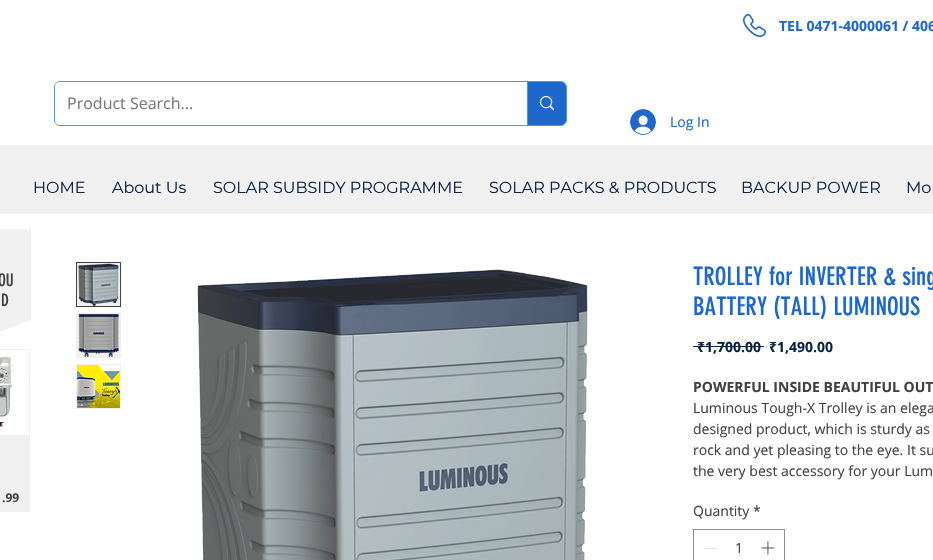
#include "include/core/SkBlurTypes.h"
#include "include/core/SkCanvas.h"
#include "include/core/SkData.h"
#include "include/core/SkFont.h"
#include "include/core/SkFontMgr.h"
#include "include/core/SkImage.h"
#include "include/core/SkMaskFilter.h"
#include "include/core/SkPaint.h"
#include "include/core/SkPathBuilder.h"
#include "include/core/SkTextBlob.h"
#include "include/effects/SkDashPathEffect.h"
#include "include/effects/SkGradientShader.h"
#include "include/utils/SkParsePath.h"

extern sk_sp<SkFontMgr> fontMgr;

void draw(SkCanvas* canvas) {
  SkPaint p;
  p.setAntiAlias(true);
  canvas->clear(SK_ColorWHITE);
  canvas->drawImageRect(SkImages::DeferredFromEncodedData(SkData::MakeFromFileName("images/1.png")), SkRect::MakeLTRB(743, 14, 766, 37), SkSamplingOptions());
  p.setStyle(SkPaint::kStroke_Style);
  p.setStrokeWidth(1);
  p.setColor(SkColorSetRGB(61, 155, 233));
  canvas->drawRoundRect(SkRect::MakeLTRB(54.5f, 81.5f, 566.5f, 125.5f), 5.5f, 5.5f, p);
  p.setStyle(SkPaint::kFill_Style);
  p.setColor(SK_ColorWHITE);
  canvas->drawRoundRect(SkRect::MakeLTRB(55, 82, 566, 125), 5, 5, p);
  p.setColor(SkColorSetRGB(30, 104, 203));
  canvas->drawPath(SkPathBuilder().moveTo(527, 82).lineTo(561, 82).cubicTo(564, 82, 566, 84, 566, 87).lineTo(566, 120).cubicTo(566, 123, 564, 125, 561, 125).lineTo(527, 125).close().detach(), p);
  p.setColor(SkColorSetRGB(61, 155, 233));
  canvas->drawRect(SkRect::MakeLTRB(527, 82, 528, 125), p);
  canvas->drawImageRect(SkImages::DeferredFromEncodedData(SkData::MakeFromFileName("images/2.png")), SkRect::MakeLTRB(540, 96, 554, 111), SkSamplingOptions());
  canvas->drawImageRect(SkImages::DeferredFromEncodedData(SkData::MakeFromFileName("images/3.png")), SkRect::MakeLTRB(630, 109, 656, 135), SkSamplingOptions());
  p.setColor(SkColorSetRGB(240, 240, 240));
  canvas->drawRect(SkRect::MakeLTRB(0, 145, 933, 214), p);
  canvas->drawRect(SkRect::MakeLTRB(0, 229, 31, 309), p);
  canvas->drawRect(SkRect::MakeLTRB(76.5f, 262.5f, 120.5f, 306.5f), p);
  p.setStyle(SkPaint::kStroke_Style);
  p.setColor(SkColorSetRGB(65, 65, 65));
  canvas->drawRect(SkRect::MakeLTRB(76.5f, 262.5f, 120.5f, 306.5f), p);
  canvas->drawImageRect(SkImages::DeferredFromEncodedData(SkData::MakeFromFileName("images/4.png")), SkRect::MakeLTRB(78, 263, 119, 306), SkSamplingOptions());
  p.setStyle(SkPaint::kFill_Style);
  p.setColor(SkColorSetRGB(240, 240, 240));
  canvas->drawRect(SkRect::MakeLTRB(76, 313, 121, 358), p);
  canvas->drawImageRect(SkImages::DeferredFromEncodedData(SkData::MakeFromFileName("images/5.png")), SkRect::MakeLTRB(78, 314, 119, 357), SkSamplingOptions());
  canvas->drawRect(SkRect::MakeLTRB(76, 364, 121, 409), p);
  canvas->drawImageRect(SkImages::DeferredFromEncodedData(SkData::MakeFromFileName("images/6.png")), SkRect::MakeLTRB(77, 365, 120, 408), SkSamplingOptions());
  canvas->drawImageRect(SkImages::DeferredFromEncodedData(SkData::MakeFromFileName("images/7.png")), SkRect::MakeLTRB(197, 269, 588, 560), SkSamplingOptions());
  p.setColor(SkColorSetRGB(10, 35, 68));
  canvas->drawRect(SkRect::MakeLTRB(693, 346, 764, 347), p);
  p.setStyle(SkPaint::kStroke_Style);
  p.setColor(SkColorSetRGB(141, 141, 141));
  canvas->drawRect(SkRect::MakeLTRB(693.5f, 529.5f, 784.5f, 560.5f), p);
  p.setStyle(SkPaint::kFill_Style);
  p.setColor(SkColorSetRGB(227, 227, 227));
  canvas->drawRect(SkRect::MakeLTRB(705, 548, 718, 549), p);
  canvas->drawImageRect(SkImages::DeferredFromEncodedData(SkData::MakeFromFileName("images/8.png")), SkRect::MakeLTRB(761, 541, 775, 555), SkSamplingOptions());
  canvas->save();
  canvas->clipRect(SkRect::MakeLTRB(0, 309, 31, 344));
  p.setColor(SkColorSetRGB(240, 240, 240));
  canvas->drawPath(SkPathBuilder().moveTo(-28, 343).lineTo(-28, 143).lineTo(472, 143).close().detach(), p);
  canvas->restore();
  canvas->drawRect(SkRect::MakeLTRB(0, 349, 30, 512), p);
  canvas->drawImageRect(SkImages::DeferredFromEncodedData(SkData::MakeFromFileName("images/9.png")), SkRect::MakeLTRB(0, 350, 29, 435), SkSamplingOptions());
  SkFont font1(fontMgr->matchFamilyStyle("Open Sans", SkFontStyle::Bold()), 14);
  font1.setSubpixel(true);
  p.setColor(SkColorSetRGB(30, 104, 203));
  canvas->drawString("TEL 0471-4000061 / 406", 779, 31, font1, p);
  SkFont font2(fontMgr->matchFamilyStyle("Open Sans", SkFontStyle::Normal()), 16);
  font2.setSubpixel(true);
  p.setColor(SkColorSetRGB(120, 120, 120));
  canvas->drawString("Product Search...", 67, 109, font2, p);
  SkFont font3(fontMgr->matchFamilyStyle("Open Sans", SkFontStyle::Normal()), 14);
  font3.setSubpixel(true);
  p.setColor(SkColorSetRGB(30, 104, 203));
  canvas->drawString("Log In", 670, 127, font3, p);
  SkFont font4(fontMgr->matchFamilyStyle("Montserrat", SkFontStyle::Normal()), 16);
  font4.setSubpixel(true);
  p.setColor(SkColorSetRGB(10, 35, 68));
  canvas->drawString("HOME", 33, 193, font4, p);
  canvas->drawString("About Us", 112, 193, font4, p);
  canvas->drawString("SOLAR SUBSIDY PROGRAMME", 213, 193, font4, p);
  canvas->drawString("SOLAR PACKS & PRODUCTS", 489, 193, font4, p);
  canvas->drawString("BACKUP POWER", 741, 193, font4, p);
  canvas->drawString("Mo", 906, 193, font4, p);
  SkFont font5(fontMgr->matchFamilyStyle("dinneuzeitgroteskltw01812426", SkFontStyle::Normal()), 25);
  font5.setSubpixel(true);
  p.setColor(SkColorSetRGB(30, 104, 203));
  canvas->drawString("TROLLEY for INVERTER & sing", 693, 285, font5, p);
  canvas->drawString("BATTERY (TALL) LUMINOUS", 693, 315, font5, p);
  SkFont font6(fontMgr->matchFamilyStyle("Noto Sans", SkFontStyle::Bold()), 14);
  font6.setSubpixel(true);
  p.setColor(SkColorSetRGB(10, 35, 68));
  canvas->drawString("₹", 697, 352, font6, p);
  canvas->drawString("1,700.00", 705, 352, font1, p);
  canvas->drawString("₹", 769, 352, font6, p);
  canvas->drawString("1,490.00", 777, 352, font1, p);
  p.setColor(SkColorSetRGB(65, 65, 65));
  canvas->drawString("POWERFUL INSIDE BEAUTIFUL OUT", 693, 392, font1, p);
  canvas->drawString("Luminous Tough-X Trolley is an elega", 693, 413, font3, p);
  canvas->drawString("designed product, which is sturdy as", 693, 434, font3, p);
  canvas->drawString("rock and yet pleasing to the eye. It su", 693, 455, font3, p);
  canvas->drawString("the very best accessory for your Lum", 693, 476, font3, p);
  canvas->drawString("Quantity", 693, 516, font3, p);
  canvas->drawString("*", 753, 516, font3, p);
  canvas->drawString("1", 735, 553, font3, p);
  SkFont font7(fontMgr->matchFamilyStyle("dinneuzeitgroteskltw01812426", SkFontStyle::Normal()), 17);
  font7.setSubpixel(true);
  canvas->drawString("OU", -2, 286, font7, p);
  canvas->drawString("D", 1, 306, font7, p);
  SkFont font8(fontMgr->matchFamilyStyle("Open Sans", SkFontStyle::Bold()), 12);
  font8.setSubpixel(true);
  canvas->drawString(".99", 2, 502, font8, p);
}
